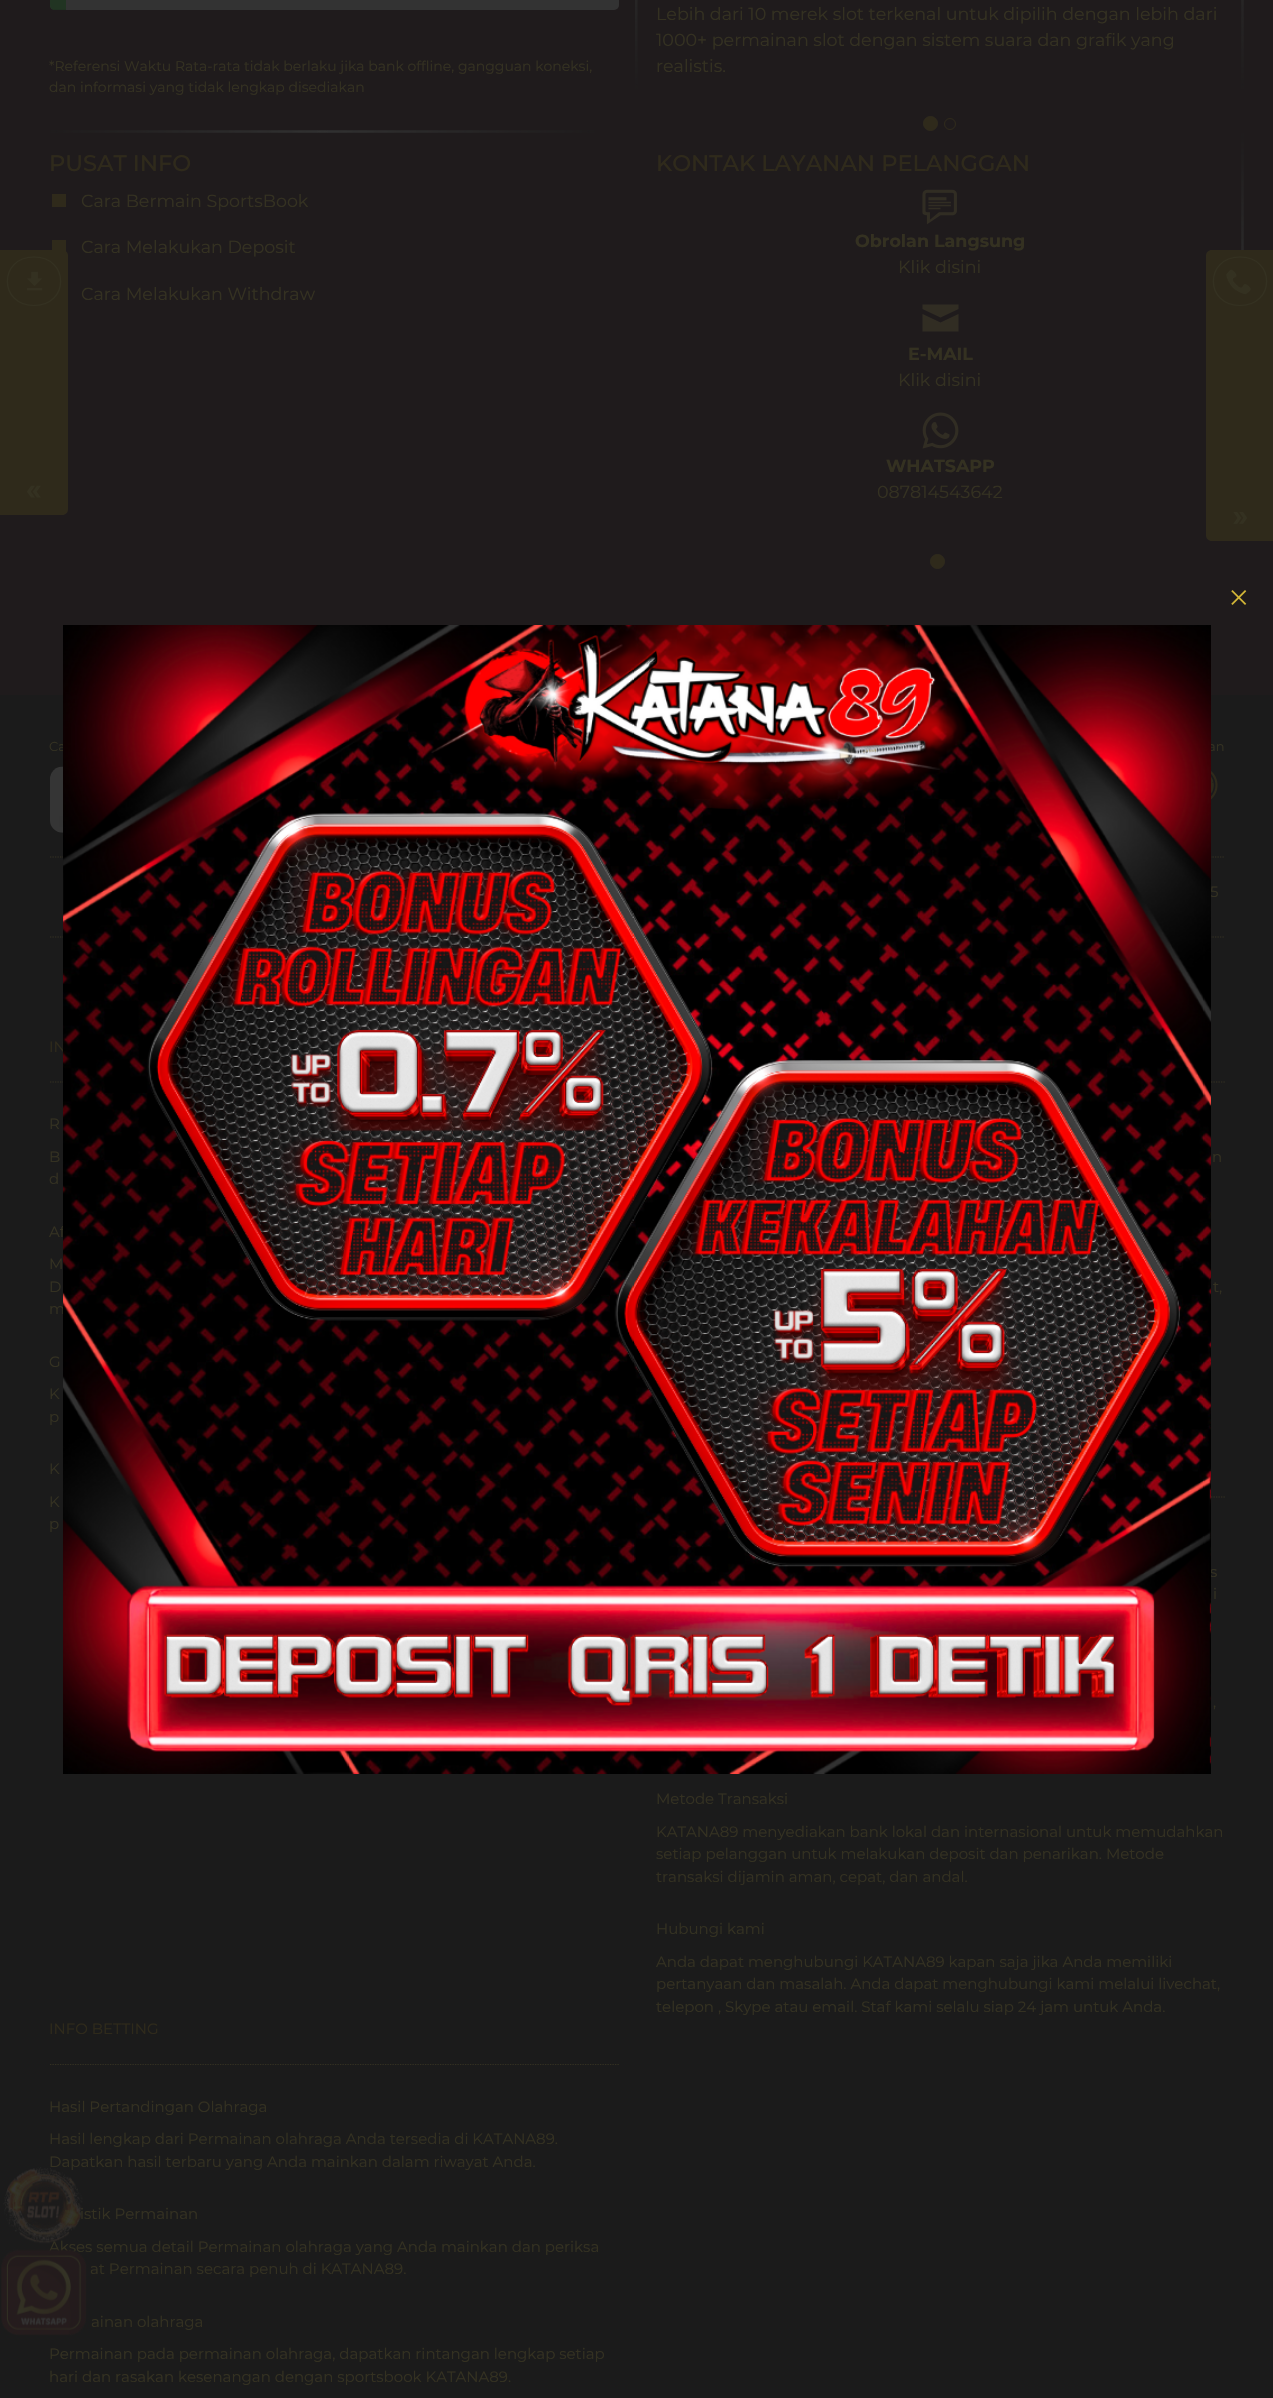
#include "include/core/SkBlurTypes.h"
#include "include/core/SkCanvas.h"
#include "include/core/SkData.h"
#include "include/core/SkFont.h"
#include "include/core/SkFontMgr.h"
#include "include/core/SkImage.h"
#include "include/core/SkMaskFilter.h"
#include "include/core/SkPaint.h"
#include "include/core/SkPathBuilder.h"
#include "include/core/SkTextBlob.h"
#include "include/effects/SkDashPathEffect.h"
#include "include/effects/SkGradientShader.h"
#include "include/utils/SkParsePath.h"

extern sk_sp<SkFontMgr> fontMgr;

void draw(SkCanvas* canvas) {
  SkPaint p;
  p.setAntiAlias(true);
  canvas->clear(SkColorSetRGB(31, 27, 28));
  p.setColor(SkColorSetRGB(47, 42, 27));
  canvas->drawRect(SkRect::MakeLTRB(52, 240, 66, 252), p);
  canvas->drawPath(SkPathBuilder().moveTo(0, 250).lineTo(62, 250).cubicTo(65.5f, 250, 68, 252.5f, 68, 256).lineTo(68, 509).cubicTo(68, 512.5f, 65.5f, 515, 62, 515).lineTo(0, 515).close().detach(), p);
  p.setStyle(SkPaint::kStroke_Style);
  p.setStrokeWidth(1.2f);
  p.setColor(SkColorSetRGB(52, 49, 33));
  canvas->drawPath(SkPathBuilder().moveTo(34, 257).cubicTo(69.5f, 257, 69.5f, 305.5f, 34, 305.5f).cubicTo(-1.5f, 305.5f, -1.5f, 257, 34, 257).close().detach(), p);
  canvas->drawImageRect(SkImages::DeferredFromEncodedData(SkData::MakeFromFileName("images/1.png")), SkRect::MakeLTRB(27, 271, 43, 291), SkSamplingOptions());
  canvas->drawImageRect(SkImages::DeferredFromEncodedData(SkData::MakeFromFileName("images/2.png")), SkRect::MakeLTRB(27, 485, 41, 498), SkSamplingOptions());
  p.setStyle(SkPaint::kFill_Style);
  p.setColor(SkColorSetRGB(47, 42, 27));
  canvas->drawCircle(930.5f, 123.5f, 7, p);
  p.setStyle(SkPaint::kStroke_Style);
  p.setStrokeWidth(1);
  canvas->drawCircle(930.5f, 123.5f, 7, p);
  canvas->drawCircle(950, 124, 5.5f, p);
  canvas->drawImageRect(SkImages::DeferredFromEncodedData(SkData::MakeFromFileName("images/3.png")), SkRect::MakeLTRB(1241, 0, 1244, 89), SkSamplingOptions());
  p.setStyle(SkPaint::kFill_Style);
  p.setColor(SkColorSetRGB(51, 51, 51));
  canvas->drawRoundRect(SkRect::MakeLTRB(50, -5, 619, 10), 5, 5, p);
  p.setColor(SkColorSetRGB(33, 52, 34));
  canvas->drawPath(SkPathBuilder().moveTo(55, -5).lineTo(66, -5).lineTo(66, 10).lineTo(55, 10).cubicTo(52, 10, 50, 8, 50, 5).lineTo(50, 0).cubicTo(50, -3, 52, -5, 55, -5).close().detach(), p);
  canvas->save();
  canvas->clipPath(SkPathBuilder().moveTo(55, -16).lineTo(614, -16).cubicTo(617, -16, 619, -14, 619, -11).lineTo(619, 5).cubicTo(619, 8, 617, 10, 614, 10).lineTo(55, 10).cubicTo(52, 10, 50, 8, 50, 5).lineTo(50, -11).cubicTo(50, -14, 52, -16, 55, -16).close().detach(), true);
  p.setColor(SkColorSetARGB(38, 27, 27, 27));
  canvas->drawRect(SkRect::MakeLTRB(50, 9, 66, 10), p);
  canvas->restore();
  canvas->drawImageRect(SkImages::DeferredFromEncodedData(SkData::MakeFromFileName("images/4.png")), SkRect::MakeLTRB(635, 0, 638, 89), SkSamplingOptions());
  canvas->drawImageRect(SkImages::DeferredFromEncodedData(SkData::MakeFromFileName("images/5.png")), SkRect::MakeLTRB(50, 130, 595, 133), SkSamplingOptions());
  p.setColor(SkColorSetRGB(47, 42, 27));
  canvas->drawRect(SkRect::MakeLTRB(52, 194, 66, 207), p);
  canvas->drawImageRect(SkImages::DeferredFromEncodedData(SkData::MakeFromFileName("images/6.png")), SkRect::MakeLTRB(1241, 133, 1244, 250), SkSamplingOptions());
  canvas->drawImageRect(SkImages::DeferredFromEncodedData(SkData::MakeFromFileName("images/7.png")), SkRect::MakeLTRB(922, 189, 957, 225), SkSamplingOptions());
  p.setColor(SkColorSetRGB(49, 45, 35));
  canvas->drawPath(SkPathBuilder().moveTo(940.5f, 317.5f).lineTo(958.5f, 309).lineTo(958.5f, 304.5f).lineTo(922.5f, 304.5f).lineTo(922.5f, 309).close().moveTo(940.5f, 322.5f).lineTo(922.5f, 314).lineTo(922.5f, 331.5f).lineTo(958.5f, 331.5f).lineTo(958.5f, 314).close().detach(), p);
  canvas->drawImageRect(SkImages::DeferredFromEncodedData(SkData::MakeFromFileName("images/8.png")), SkRect::MakeLTRB(922, 412, 959, 449), SkSamplingOptions());
  p.setColor(SkColorSetRGB(47, 42, 27));
  canvas->drawCircle(937.5f, 561.5f, 7, p);
  p.setStyle(SkPaint::kStroke_Style);
  canvas->drawCircle(937.5f, 561.5f, 7, p);
  p.setStyle(SkPaint::kFill_Style);
  canvas->drawPath(SkPathBuilder().moveTo(1212, 250).lineTo(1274, 250).lineTo(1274, 541).lineTo(1212, 541).cubicTo(1208.5f, 541, 1206, 538.5f, 1206, 535).lineTo(1206, 256).cubicTo(1206, 252.5f, 1208.5f, 250, 1212, 250).close().detach(), p);
  p.setStyle(SkPaint::kStroke_Style);
  p.setStrokeWidth(1.2f);
  p.setColor(SkColorSetRGB(52, 49, 33));
  canvas->drawPath(SkPathBuilder().moveTo(1240, 257).cubicTo(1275.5f, 257, 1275.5f, 305.5f, 1240, 305.5f).cubicTo(1204.5f, 305.5f, 1204.5f, 257, 1240, 257).close().detach(), p);
  canvas->drawImageRect(SkImages::DeferredFromEncodedData(SkData::MakeFromFileName("images/9.png")), SkRect::MakeLTRB(1226, 269, 1251, 295), SkSamplingOptions());
  canvas->drawImageRect(SkImages::DeferredFromEncodedData(SkData::MakeFromFileName("images/10.png")), SkRect::MakeLTRB(1233, 512, 1247, 524), SkSamplingOptions());
  canvas->drawImageRect(SkImages::DeferredFromEncodedData(SkData::MakeFromFileName("images/11.png")), SkRect::MakeLTRB(1231, 590, 1247, 605), SkSamplingOptions());
  p.setStyle(SkPaint::kFill_Style);
  p.setColor(SkColorSetRGB(27, 27, 27));
  canvas->drawRect(SkRect::MakeLTRB(0, 695, 1273, 2398), p);
  canvas->drawImageRect(SkImages::DeferredFromEncodedData(SkData::MakeFromFileName("images/14.png")), SkRect::MakeLTRB(50, 766, 63, 833), SkSamplingOptions());
  canvas->drawImageRect(SkImages::DeferredFromEncodedData(SkData::MakeFromFileName("images/15.png")), SkRect::MakeLTRB(1211, 771, 1218, 800), SkSamplingOptions());
  p.setStyle(SkPaint::kStroke_Style);
  p.setColor(SkColorSetRGB(52, 49, 33));
  p.setPathEffect(SkDashPathEffect::Make({{1.25f, 1.25f}}, 0));
  canvas->drawPath(SkPathBuilder().moveTo(50, 857).lineTo(1225, 857).detach(), p);
  p.setPathEffect(nullptr);
  p.setPathEffect(SkDashPathEffect::Make({{1.25f, 1.25f}}, 0));
  canvas->drawPath(SkPathBuilder().moveTo(50, 937).lineTo(1225, 937).detach(), p);
  p.setPathEffect(nullptr);
  p.setPathEffect(SkDashPathEffect::Make({{1.25f, 1.25f}}, 0));
  canvas->drawPath(SkPathBuilder().moveTo(50, 1082).lineTo(619, 1082).detach(), p);
  p.setPathEffect(nullptr);
  p.setPathEffect(SkDashPathEffect::Make({{1.25f, 1.25f}}, 0));
  canvas->drawPath(SkPathBuilder().moveTo(656, 1082).lineTo(1225, 1082).detach(), p);
  p.setPathEffect(nullptr);
  p.setPathEffect(SkDashPathEffect::Make({{1.25f, 1.25f}}, 0));
  canvas->drawPath(SkPathBuilder().moveTo(656, 1497).lineTo(1225, 1497).detach(), p);
  p.setPathEffect(nullptr);
  p.setPathEffect(SkDashPathEffect::Make({{1.25f, 1.25f}}, 0));
  canvas->drawPath(SkPathBuilder().moveTo(50, 2064.5f).lineTo(619, 2064.5f).detach(), p);
  p.setPathEffect(nullptr);
  SkFont font1(fontMgr->matchFamilyStyle("Montserrat", SkFontStyle::Normal()), 17.5f);
  font1.setSubpixel(true);
  p.setStyle(SkPaint::kFill_Style);
  canvas->drawString("Lebih dari 10 merek slot terkenal untuk dipilih dengan lebih dari", 656, 20, font1, p);
  canvas->drawString("1000+ permainan slot dengan sistem suara dan grafik yang", 656, 46, font1, p);
  canvas->drawString("realistis.", 656, 72, font1, p);
  SkFont font2(fontMgr->matchFamilyStyle("Montserrat", SkFontStyle::Normal()), 14);
  font2.setSubpixel(true);
  canvas->drawString("*Referensi Waktu Rata-rata tidak berlaku jika bank offline, gangguan koneksi,", 49, 71, font2, p);
  canvas->drawString("dan informasi yang tidak lengkap disediakan", 49, 92, font2, p);
  SkFont font3(fontMgr->matchFamilyStyle("Montserrat", SkFontStyle(500, SkFontStyle::kNormal_Width, SkFontStyle::kUpright_Slant)), 22.5f);
  font3.setSubpixel(true);
  p.setColor(SkColorSetRGB(47, 42, 27));
  canvas->drawString("PUSAT INFO", 49, 171, font3, p);
  p.setColor(SkColorSetRGB(52, 49, 33));
  canvas->drawString("Cara Bermain SportsBook", 81, 207, font1, p);
  canvas->drawString("Cara Melakukan Deposit", 81, 253, font1, p);
  canvas->drawString("Cara Melakukan Withdraw", 81, 300, font1, p);
  p.setColor(SkColorSetRGB(47, 42, 27));
  canvas->drawString("KONTAK LAYANAN PELANGGAN", 656, 171, font3, p);
  SkFont font4(fontMgr->matchFamilyStyle("Montserrat", SkFontStyle::Bold()), 17.5f);
  font4.setSubpixel(true);
  p.setColor(SkColorSetRGB(52, 49, 33));
  canvas->drawString("Obrolan Langsung", 855, 247, font4, p);
  canvas->drawString("Klik disini", 898, 273, font1, p);
  canvas->drawString("E-MAIL", 908, 360, font4, p);
  canvas->drawString("Klik disini", 898, 386, font1, p);
  canvas->drawString("WHATSAPP", 886, 472, font4, p);
  canvas->drawString("087814543642", 877, 498, font1, p);
  SkFont font5(fontMgr->matchFamilyStyle("Montserrat", SkFontStyle::Normal()), 13);
  font5.setSubpixel(true);
  canvas->drawString("Ca", 49, 751, font5, p);
  canvas->drawString("an", 1208, 751, font5, p);
  SkFont font6(fontMgr->matchFamilyStyle("Montserrat", SkFontStyle::Normal()), 15);
  font6.setSubpixel(true);
  canvas->drawString("5", 1210, 897, font6, p);
  p.setColor(SkColorSetRGB(47, 42, 27));
  canvas->drawString("IN", 49, 1052, font6, p);
  p.setColor(SkColorSetRGB(52, 49, 33));
  canvas->drawString("R", 49, 1129, font6, p);
  canvas->drawString("B", 49, 1162, font6, p);
  canvas->drawString("d", 49, 1184, font6, p);
  canvas->drawString("Af", 49, 1237, font6, p);
  canvas->drawString("M", 49, 1269, font6, p);
  canvas->drawString("D", 49, 1292, font6, p);
  canvas->drawString("m", 49, 1314, font6, p);
  canvas->drawString("G", 49, 1367, font6, p);
  canvas->drawString("K", 49, 1399, font6, p);
  canvas->drawString("p", 49, 1422, font6, p);
  canvas->drawString("K", 49, 1474, font6, p);
  canvas->drawString("K", 49, 1507, font6, p);
  canvas->drawString("p", 49, 1529, font6, p);
  canvas->drawString("n", 1212, 1162, font6, p);
  canvas->drawString("t,", 1213, 1292, font6, p);
  canvas->drawString("s", 1210, 1577, font6, p);
  canvas->drawImageRect(SkImages::DeferredFromEncodedData(SkData::MakeFromFileName("images/12.png")), SkRect::MakeLTRB(63, 625, 1211, 1774), SkSamplingOptions());
  canvas->drawString("i", 1213, 1599, font6, p);
  canvas->drawString(",", 1213, 1707, font6, p);
  canvas->drawString("Metode Transaksi", 656, 1804, font6, p);
  canvas->drawString("KATANA89 menyediakan bank lokal dan internasional untuk memudahkan", 656, 1837, font6, p);
  canvas->drawString("setiap pelanggan untuk melakukan deposit dan penarikan. Metode", 656, 1859, font6, p);
  canvas->drawString("transaksi dijamin aman, cepat, dan andal.", 656, 1882, font6, p);
  canvas->drawString("Hubungi kami", 656, 1934, font6, p);
  canvas->drawString("Anda dapat menghubungi KATANA89 kapan saja jika Anda memiliki", 656, 1967, font6, p);
  canvas->drawString("pertanyaan dan masalah. Anda dapat menghubungi kami melalui livechat,", 656, 1989, font6, p);
  canvas->drawString("telepon , Skype atau email. Staf kami selalu siap 24 jam untuk Anda.", 656, 2012, font6, p);
  p.setColor(SkColorSetRGB(47, 42, 27));
  canvas->drawString("INFO BETTING", 49, 2034, font6, p);
  p.setColor(SkColorSetRGB(52, 49, 33));
  canvas->drawString("Hasil Pertandingan Olahraga", 49, 2112, font6, p);
  canvas->drawString("Hasil lengkap dari Permainan olahraga Anda tersedia di KATANA89.", 49, 2144, font6, p);
  canvas->drawString("Dapatkan hasil terbaru yang Anda mainkan dalam riwayat Anda.", 49, 2167, font6, p);
  canvas->drawString("istik Permainan", 80, 2219, font6, p);
  canvas->drawString("Akses semua detail Permainan olahraga yang Anda mainkan dan periksa", 49, 2252, font6, p);
  canvas->drawImageRect(SkImages::DeferredFromEncodedData(SkData::MakeFromFileName("images/13.png")), SkRect::MakeLTRB(3, 2167, 83, 2244), SkSamplingOptions());
  canvas->drawString("at Permainan secara penuh di KATANA89.", 90, 2274, font6, p);
  canvas->drawString("ainan olahraga", 91, 2327, font6, p);
  canvas->drawString("Permainan pada permainan olahraga, dapatkan rintangan lengkap setiap", 49, 2359, font6, p);
  canvas->drawString("hari dan rasakan kesenangan dengan sportsbook KATANA89.", 49, 2382, font6, p);
  canvas->drawImageRect(SkImages::DeferredFromEncodedData(SkData::MakeFromFileName("images/16.png")), SkRect::MakeLTRB(1, 2249, 87, 2336), SkSamplingOptions());
}
